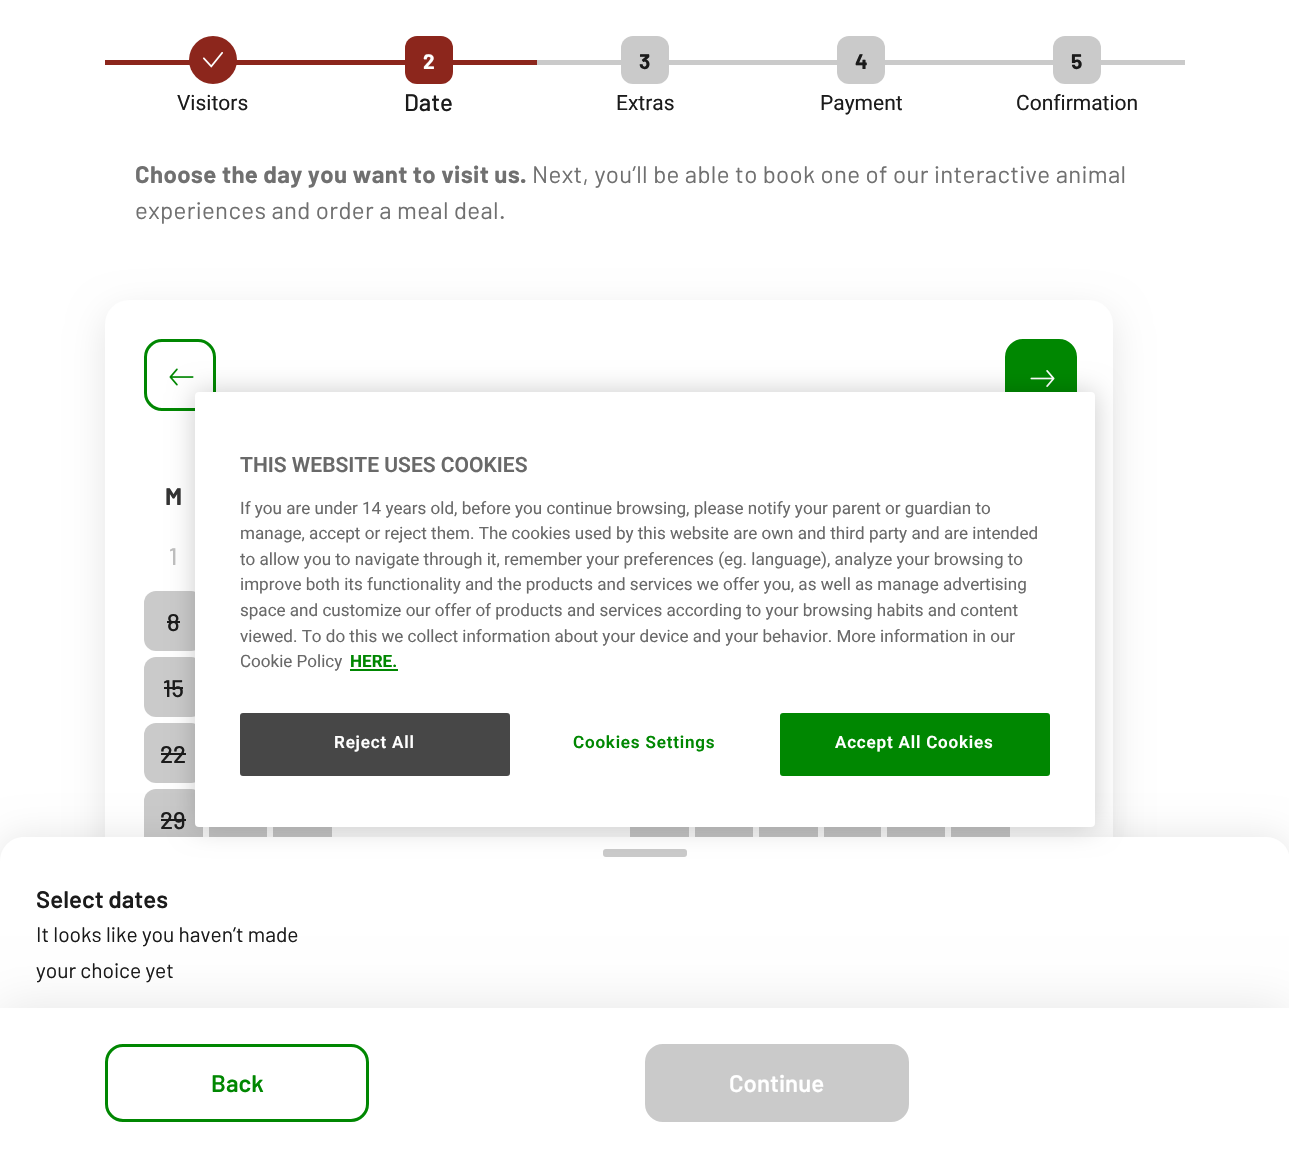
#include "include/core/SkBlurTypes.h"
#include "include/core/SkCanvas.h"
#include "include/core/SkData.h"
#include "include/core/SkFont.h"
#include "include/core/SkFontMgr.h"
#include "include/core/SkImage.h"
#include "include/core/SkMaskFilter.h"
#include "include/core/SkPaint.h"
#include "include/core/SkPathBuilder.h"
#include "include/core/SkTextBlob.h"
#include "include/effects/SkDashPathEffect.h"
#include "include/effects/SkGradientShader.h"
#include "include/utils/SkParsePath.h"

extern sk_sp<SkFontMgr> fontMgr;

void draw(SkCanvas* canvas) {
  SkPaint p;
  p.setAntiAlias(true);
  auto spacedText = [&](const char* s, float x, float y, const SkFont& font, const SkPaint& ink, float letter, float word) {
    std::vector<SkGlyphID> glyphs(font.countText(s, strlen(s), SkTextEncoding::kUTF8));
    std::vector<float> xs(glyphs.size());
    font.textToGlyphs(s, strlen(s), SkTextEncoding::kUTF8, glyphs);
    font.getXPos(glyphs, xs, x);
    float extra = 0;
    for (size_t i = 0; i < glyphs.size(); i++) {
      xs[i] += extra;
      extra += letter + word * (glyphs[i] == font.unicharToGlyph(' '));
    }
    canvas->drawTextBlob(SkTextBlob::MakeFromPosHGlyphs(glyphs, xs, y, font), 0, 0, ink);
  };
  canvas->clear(SK_ColorWHITE);
  p.setColor(SkColorSetRGB(140, 38, 28));
  canvas->drawCircle(213, 60, 24, p);
  canvas->drawRect(SkRect::MakeLTRB(105, 60, 190, 65), p);
  canvas->drawImageRect(SkImages::DeferredFromEncodedData(SkData::MakeFromFileName("images/1.png")), SkRect::MakeLTRB(203, 52, 223, 68), SkSamplingOptions());
  canvas->drawRect(SkRect::MakeLTRB(236, 60, 405, 65), p);
  canvas->drawRoundRect(SkRect::MakeLTRB(405, 36, 453, 84), 12, 12, p);
  canvas->drawRect(SkRect::MakeLTRB(453, 60, 537, 65), p);
  p.setColor(SkColorSetRGB(202, 202, 202));
  canvas->drawRect(SkRect::MakeLTRB(537, 60, 621, 65), p);
  canvas->drawRoundRect(SkRect::MakeLTRB(621, 36, 669, 84), 12, 12, p);
  canvas->drawRect(SkRect::MakeLTRB(669, 60, 837, 65), p);
  canvas->drawRoundRect(SkRect::MakeLTRB(837, 36, 885, 84), 12, 12, p);
  canvas->drawRect(SkRect::MakeLTRB(885, 60, 1053, 65), p);
  canvas->drawRoundRect(SkRect::MakeLTRB(1053, 36, 1101, 84), 12, 12, p);
  canvas->drawRect(SkRect::MakeLTRB(1101, 60, 1185, 65), p);
  p.setColor(SkColorSetARGB(26, 0, 0, 0));
  p.setMaskFilter(SkMaskFilter::MakeBlur(kNormal_SkBlurStyle, 18));
  canvas->drawRoundRect(SkRect::MakeLTRB(105, 312, 1113, 900), 24, 24, p);
  p.setMaskFilter(nullptr);
  p.setColor(SK_ColorWHITE);
  canvas->drawRoundRect(SkRect::MakeLTRB(105, 300, 1113, 888), 24, 24, p);
  p.setStyle(SkPaint::kStroke_Style);
  p.setStrokeWidth(3);
  p.setColor(SkColorSetRGB(0, 135, 1));
  canvas->drawPath(SkPathBuilder().moveTo(162, 340.5f).lineTo(198, 340.5f).cubicTo(207, 340.5f, 214.5f, 348, 214.5f, 357).lineTo(214.5f, 409.5f).lineTo(162, 409.5f).cubicTo(153, 409.5f, 145.5f, 402, 145.5f, 393).lineTo(145.5f, 357).cubicTo(145.5f, 348, 153, 340.5f, 162, 340.5f).close().detach(), p);
  canvas->drawImageRect(SkImages::DeferredFromEncodedData(SkData::MakeFromFileName("images/2.png")), SkRect::MakeLTRB(169, 368, 194, 386), SkSamplingOptions());
  p.setStyle(SkPaint::kFill_Style);
  p.setColor(SkColorSetRGB(202, 202, 202));
  canvas->drawRoundRect(SkRect::MakeLTRB(144, 591, 203, 651), 12, 12, p);
  p.setColor(SkColorSetRGB(27, 27, 27));
  canvas->drawRect(SkRect::MakeLTRB(167, 621, 180, 623), p);
  p.setColor(SkColorSetRGB(202, 202, 202));
  canvas->drawRoundRect(SkRect::MakeLTRB(144, 657, 203, 717), 12, 12, p);
  p.setColor(SkColorSetRGB(27, 27, 27));
  canvas->drawRect(SkRect::MakeLTRB(164, 687, 183, 689), p);
  p.setColor(SkColorSetRGB(202, 202, 202));
  canvas->drawRoundRect(SkRect::MakeLTRB(144, 723, 203, 783), 12, 12, p);
  p.setColor(SkColorSetRGB(27, 27, 27));
  canvas->drawRect(SkRect::MakeLTRB(161, 753, 186, 755), p);
  p.setColor(SkColorSetRGB(202, 202, 202));
  canvas->drawRoundRect(SkRect::MakeLTRB(144, 789, 203, 849), 12, 12, p);
  p.setColor(SkColorSetRGB(27, 27, 27));
  canvas->drawRect(SkRect::MakeLTRB(161, 819, 186, 821), p);
  p.setColor(SkColorSetRGB(202, 202, 202));
  canvas->drawRect(SkRect::MakeLTRB(209, 827, 267, 837), p);
  canvas->drawRect(SkRect::MakeLTRB(273, 827, 332, 837), p);
  p.setColor(SkColorSetRGB(0, 135, 1));
  canvas->drawPath(SkPathBuilder().moveTo(1023, 340.5f).lineTo(1059, 340.5f).cubicTo(1068, 340.5f, 1075.5f, 348, 1075.5f, 357).lineTo(1075.5f, 393).cubicTo(1075.5f, 402, 1068, 409.5f, 1059, 409.5f).lineTo(1006.5f, 409.5f).lineTo(1006.5f, 357).cubicTo(1006.5f, 348, 1014, 340.5f, 1023, 340.5f).close().detach(), p);
  p.setStyle(SkPaint::kStroke_Style);
  canvas->drawPath(SkPathBuilder().moveTo(1023, 340.5f).lineTo(1059, 340.5f).cubicTo(1068, 340.5f, 1075.5f, 348, 1075.5f, 357).lineTo(1075.5f, 393).cubicTo(1075.5f, 402, 1068, 409.5f, 1059, 409.5f).lineTo(1006.5f, 409.5f).lineTo(1006.5f, 357).cubicTo(1006.5f, 348, 1014, 340.5f, 1023, 340.5f).close().detach(), p);
  canvas->drawImageRect(SkImages::DeferredFromEncodedData(SkData::MakeFromFileName("images/3.png")), SkRect::MakeLTRB(1030, 370, 1055, 387), SkSamplingOptions());
  p.setStyle(SkPaint::kFill_Style);
  p.setColor(SkColorSetRGB(202, 202, 202));
  canvas->drawRect(SkRect::MakeLTRB(630, 827, 689, 837), p);
  canvas->drawRect(SkRect::MakeLTRB(695, 827, 753, 837), p);
  canvas->drawRect(SkRect::MakeLTRB(759, 827, 818, 837), p);
  canvas->drawRect(SkRect::MakeLTRB(824, 827, 881, 837), p);
  canvas->drawRect(SkRect::MakeLTRB(887, 827, 945, 837), p);
  canvas->drawRect(SkRect::MakeLTRB(951, 827, 1010, 837), p);
  p.setColor(SkColorSetARGB(26, 0, 0, 0));
  p.setMaskFilter(SkMaskFilter::MakeBlur(kNormal_SkBlurStyle, 18));
  canvas->drawRoundRect(SkRect::MakeLTRB(0, 837, 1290, 1013), 24, 24, p);
  p.setMaskFilter(nullptr);
  p.setColor(SK_ColorWHITE);
  canvas->drawPath(SkPathBuilder().moveTo(24, 837).lineTo(1266, 837).cubicTo(1279.5f, 837, 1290, 847.5f, 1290, 861).lineTo(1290, 1013).lineTo(0, 1013).lineTo(0, 861).cubicTo(0, 847.5f, 10.5f, 837, 24, 837).close().detach(), p);
  p.setColor(SkColorSetRGB(202, 202, 202));
  canvas->drawRoundRect(SkRect::MakeLTRB(603, 849, 687, 857), 3, 3, p);
  p.setColor(SkColorSetARGB(26, 0, 0, 0));
  p.setMaskFilter(SkMaskFilter::MakeBlur(kNormal_SkBlurStyle, 24));
  canvas->drawRect(SkRect::MakeLTRB(0, 1008, 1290, 1158), p);
  p.setMaskFilter(nullptr);
  p.setColor(SK_ColorWHITE);
  canvas->drawRect(SkRect::MakeLTRB(0, 1008, 1289, 1158), p);
  p.setStyle(SkPaint::kStroke_Style);
  p.setColor(SkColorSetRGB(0, 135, 1));
  canvas->drawRoundRect(SkRect::MakeLTRB(106.5f, 1045.5f, 367.5f, 1120.5f), 16.5f, 16.5f, p);
  p.setStyle(SkPaint::kFill_Style);
  p.setColor(SkColorSetRGB(202, 202, 202));
  canvas->drawRoundRect(SkRect::MakeLTRB(646.5f, 1045.5f, 907.5f, 1120.5f), 16.5f, 16.5f, p);
  p.setStyle(SkPaint::kStroke_Style);
  canvas->drawRoundRect(SkRect::MakeLTRB(646.5f, 1045.5f, 907.5f, 1120.5f), 16.5f, 16.5f, p);
  p.setStyle(SkPaint::kFill_Style);
  p.setColor(SkColorSetARGB(51, 0, 0, 0));
  p.setMaskFilter(SkMaskFilter::MakeBlur(kNormal_SkBlurStyle, 13.5f));
  canvas->drawRoundRect(SkRect::MakeLTRB(195, 392, 1095, 827), 4, 4, p);
  p.setMaskFilter(nullptr);
  p.setColor(SK_ColorWHITE);
  canvas->drawRoundRect(SkRect::MakeLTRB(195, 392, 1095, 827), 4, 4, p);
  p.setColor(SkColorSetRGB(0, 135, 1));
  canvas->drawRect(SkRect::MakeLTRB(350, 669, 398, 671), p);
  p.setColor(SkColorSetRGB(71, 71, 71));
  canvas->drawRoundRect(SkRect::MakeLTRB(241, 714, 509, 775), 2, 2, p);
  p.setStyle(SkPaint::kStroke_Style);
  p.setStrokeWidth(2);
  canvas->drawRoundRect(SkRect::MakeLTRB(241, 714, 509, 775), 2, 2, p);
  p.setStyle(SkPaint::kFill_Style);
  p.setColor(SkColorSetRGB(0, 135, 1));
  canvas->drawRoundRect(SkRect::MakeLTRB(781, 714, 1049, 775), 2, 2, p);
  p.setStyle(SkPaint::kStroke_Style);
  canvas->drawRoundRect(SkRect::MakeLTRB(781, 714, 1049, 775), 2, 2, p);
  SkFont font1(fontMgr->matchFamilyStyle("Roboto", SkFontStyle::Normal()), 21);
  font1.setSubpixel(true);
  p.setStyle(SkPaint::kFill_Style);
  p.setColor(SkColorSetRGB(27, 27, 27));
  canvas->drawString("Visitors", 177, 110, font1, p);
  SkFont font2(fontMgr->matchFamilyStyle("Barlow", SkFontStyle::Bold()), 21);
  font2.setSubpixel(true);
  p.setColor(SK_ColorWHITE);
  canvas->drawString("2", 423, 69, font2, p);
  SkFont font3(fontMgr->matchFamilyStyle("Barlow", SkFontStyle(500, SkFontStyle::kNormal_Width, SkFontStyle::kUpright_Slant)), 24);
  font3.setSubpixel(true);
  p.setColor(SkColorSetRGB(27, 27, 27));
  canvas->drawString("Date", 404, 111, font3, p);
  canvas->drawString("3", 639, 69, font2, p);
  canvas->drawString("Extras", 616, 110, font1, p);
  canvas->drawString("4", 855, 69, font2, p);
  canvas->drawString("Payment", 820, 110, font1, p);
  canvas->drawString("5", 1071, 69, font2, p);
  canvas->drawString("Confirmation", 1016, 110, font1, p);
  SkFont font4(fontMgr->matchFamilyStyle("Barlow", SkFontStyle::Bold()), 24);
  font4.setSubpixel(true);
  p.setColor(SkColorSetRGB(112, 112, 112));
  spacedText("Choose the day you want to visit us.", 135, 183, font4, p, 0.35f, 0);
  SkFont font5(fontMgr->matchFamilyStyle("Barlow", SkFontStyle::Normal()), 24);
  font5.setSubpixel(true);
  spacedText("Next, you’ll be able to book one of our interactive animal", 532, 183, font5, p, 0.35f, 0);
  spacedText("experiences and order a meal deal.", 135, 219, font5, p, 0.35f, 0);
  p.setColor(SkColorSetRGB(51, 51, 51));
  canvas->drawString("M", 165, 505, font4, p);
  p.setColor(SkColorSetRGB(189, 189, 189));
  canvas->drawString("1", 169, 565, font3, p);
  p.setColor(SkColorSetRGB(27, 27, 27));
  canvas->drawString("8", 167, 631, font3, p);
  canvas->drawString("15", 163, 697, font3, p);
  canvas->drawString("22", 160, 763, font3, p);
  canvas->drawString("29", 160, 829, font3, p);
  SkFont font6(fontMgr->matchFamilyStyle("Barlow", SkFontStyle(600, SkFontStyle::kNormal_Width, SkFontStyle::kUpright_Slant)), 24);
  font6.setSubpixel(true);
  canvas->drawString("Select dates", 36, 908, font6, p);
  SkFont font7(fontMgr->matchFamilyStyle("Barlow", SkFontStyle::Normal()), 21);
  font7.setSubpixel(true);
  canvas->drawString("It looks like you haven’t made", 36, 942, font7, p);
  canvas->drawString("your choice yet", 36, 978, font7, p);
  p.setColor(SkColorSetRGB(0, 135, 1));
  canvas->drawString("Back", 211, 1092, font6, p);
  p.setColor(SK_ColorWHITE);
  canvas->drawString("Continue", 729, 1092, font6, p);
  SkFont font8(fontMgr->matchFamilyStyle("Roboto", SkFontStyle(600, SkFontStyle::kNormal_Width, SkFontStyle::kUpright_Slant)), 21);
  font8.setSubpixel(true);
  p.setColor(SkColorSetRGB(105, 105, 105));
  canvas->drawString("THIS WEBSITE USES COOKIES", 240, 472, font8, p);
  SkFont font9(fontMgr->matchFamilyStyle("Roboto", SkFontStyle::Normal()), 17.05f);
  font9.setSubpixel(true);
  canvas->drawString("If you are under 14 years old, before you continue browsing, please notify your parent or guardian to", 240, 514, font9, p);
  canvas->drawString("manage, accept or reject them. The cookies used by this website are own and third party and are intended", 240, 539, font9, p);
  canvas->drawString("to allow you to navigate through it, remember your preferences (eg. language), analyze your browsing to", 240, 565, font9, p);
  canvas->drawString("improve both its functionality and the products and services we offer you, as well as manage advertising", 240, 590, font9, p);
  canvas->drawString("space and customize our offer of products and services according to your browsing habits and content", 240, 616, font9, p);
  canvas->drawString("viewed. To do this we collect information about your device and your behavior. More information in our", 240, 642, font9, p);
  canvas->drawString("Cookie Policy", 240, 667, font9, p);
  SkFont font10(fontMgr->matchFamilyStyle("Roboto", SkFontStyle::Bold()), 17.05f);
  font10.setSubpixel(true);
  p.setColor(SkColorSetRGB(0, 135, 1));
  canvas->drawString("HERE.", 350, 667, font10, p);
  SkFont font11(fontMgr->matchFamilyStyle("Roboto", SkFontStyle(600, SkFontStyle::kNormal_Width, SkFontStyle::kUpright_Slant)), 17.05f);
  font11.setSubpixel(true);
  p.setColor(SK_ColorWHITE);
  spacedText("Reject All", 334, 748, font11, p, 0.8f, 0);
  spacedText("Accept All Cookies", 835, 748, font11, p, 0.8f, 0);
  p.setColor(SkColorSetRGB(0, 135, 1));
  spacedText("Cookies Settings", 573, 748, font11, p, 0.8f, 0);
}
